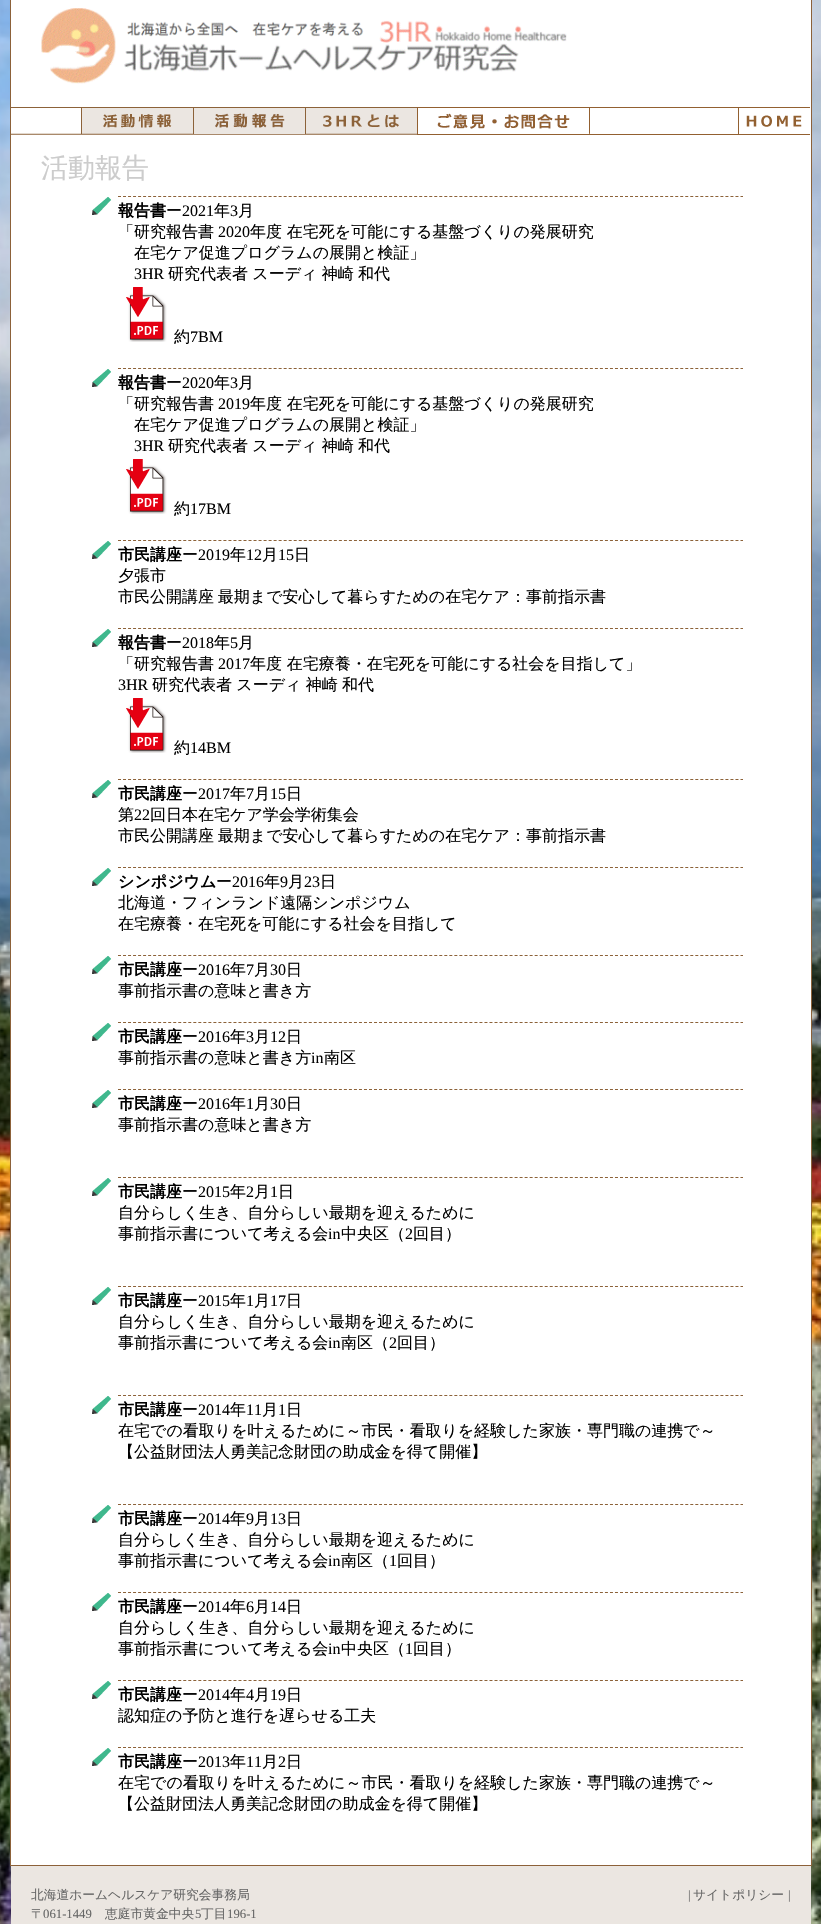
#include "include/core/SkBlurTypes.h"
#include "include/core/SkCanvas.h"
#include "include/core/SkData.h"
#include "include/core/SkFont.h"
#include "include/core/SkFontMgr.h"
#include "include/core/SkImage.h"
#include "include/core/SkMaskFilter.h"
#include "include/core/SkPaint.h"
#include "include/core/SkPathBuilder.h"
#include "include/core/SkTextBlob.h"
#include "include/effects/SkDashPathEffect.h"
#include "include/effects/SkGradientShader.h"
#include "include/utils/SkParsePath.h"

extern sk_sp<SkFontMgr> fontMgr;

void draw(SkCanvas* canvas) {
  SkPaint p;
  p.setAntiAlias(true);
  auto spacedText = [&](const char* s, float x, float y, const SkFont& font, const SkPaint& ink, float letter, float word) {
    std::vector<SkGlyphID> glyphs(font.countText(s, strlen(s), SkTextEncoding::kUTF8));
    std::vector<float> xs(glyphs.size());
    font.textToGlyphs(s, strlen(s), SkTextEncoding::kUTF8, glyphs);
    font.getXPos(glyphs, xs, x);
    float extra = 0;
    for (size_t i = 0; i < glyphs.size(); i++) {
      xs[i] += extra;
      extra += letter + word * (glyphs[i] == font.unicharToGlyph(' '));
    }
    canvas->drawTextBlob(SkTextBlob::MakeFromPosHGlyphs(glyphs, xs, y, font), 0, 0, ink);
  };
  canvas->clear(SK_ColorWHITE);
  canvas->drawImageRect(SkImages::DeferredFromEncodedData(SkData::MakeFromFileName("images/1.png")), SkRect::MakeLTRB(0, 0, 821, 1924), SkSamplingOptions());
  p.setColor(SK_ColorWHITE);
  canvas->drawRect(SkRect::MakeLTRB(10.5f, -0.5f, 811.5f, 1865.5f), p);
  p.setStyle(SkPaint::kStroke_Style);
  p.setStrokeWidth(1);
  p.setColor(SkColorSetRGB(140, 97, 57));
  canvas->drawRect(SkRect::MakeLTRB(10.5f, -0.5f, 811.5f, 1865.5f), p);
  canvas->drawImageRect(SkImages::DeferredFromEncodedData(SkData::MakeFromFileName("images/2.png")), SkRect::MakeLTRB(41, 8, 567, 84), SkSamplingOptions());
  canvas->drawImageRect(SkImages::DeferredFromEncodedData(SkData::MakeFromFileName("images/3.png")), SkRect::MakeLTRB(11, 107, 81, 135), SkSamplingOptions());
  canvas->drawImageRect(SkImages::DeferredFromEncodedData(SkData::MakeFromFileName("images/4.png")), SkRect::MakeLTRB(81, 107, 193, 135), SkSamplingOptions());
  canvas->drawImageRect(SkImages::DeferredFromEncodedData(SkData::MakeFromFileName("images/5.png")), SkRect::MakeLTRB(193, 107, 305, 135), SkSamplingOptions());
  canvas->drawImageRect(SkImages::DeferredFromEncodedData(SkData::MakeFromFileName("images/6.png")), SkRect::MakeLTRB(305, 107, 417, 135), SkSamplingOptions());
  canvas->drawImageRect(SkImages::DeferredFromEncodedData(SkData::MakeFromFileName("images/7.png")), SkRect::MakeLTRB(417, 107, 589, 135), SkSamplingOptions());
  canvas->drawImageRect(SkImages::DeferredFromEncodedData(SkData::MakeFromFileName("images/8.png")), SkRect::MakeLTRB(589, 107, 810, 135), SkSamplingOptions());
  p.setColor(SkColorSetRGB(140, 98, 57));
  p.setPathEffect(SkDashPathEffect::Make({{3, 2.02f}}, 0));
  canvas->drawPath(SkPathBuilder().moveTo(118, 196.5f).lineTo(743, 196.5f).detach(), p);
  p.setPathEffect(nullptr);
  canvas->drawImageRect(SkImages::DeferredFromEncodedData(SkData::MakeFromFileName("images/9.png")), SkRect::MakeLTRB(92, 197, 111, 215), SkSamplingOptions());
  canvas->drawImageRect(SkImages::DeferredFromEncodedData(SkData::MakeFromFileName("images/10.png")), SkRect::MakeLTRB(126, 287, 167, 342), SkSamplingOptions());
  p.setPathEffect(SkDashPathEffect::Make({{3, 2.02f}}, 0));
  canvas->drawPath(SkPathBuilder().moveTo(118, 368.5f).lineTo(743, 368.5f).detach(), p);
  p.setPathEffect(nullptr);
  canvas->drawImageRect(SkImages::DeferredFromEncodedData(SkData::MakeFromFileName("images/9.png")), SkRect::MakeLTRB(92, 369, 111, 387), SkSamplingOptions());
  canvas->drawImageRect(SkImages::DeferredFromEncodedData(SkData::MakeFromFileName("images/10.png")), SkRect::MakeLTRB(126, 459, 167, 514), SkSamplingOptions());
  p.setPathEffect(SkDashPathEffect::Make({{3, 2.02f}}, 0));
  canvas->drawPath(SkPathBuilder().moveTo(118, 540.5f).lineTo(743, 540.5f).detach(), p);
  p.setPathEffect(nullptr);
  canvas->drawImageRect(SkImages::DeferredFromEncodedData(SkData::MakeFromFileName("images/9.png")), SkRect::MakeLTRB(92, 541, 111, 559), SkSamplingOptions());
  p.setPathEffect(SkDashPathEffect::Make({{3, 2.02f}}, 0));
  canvas->drawPath(SkPathBuilder().moveTo(118, 628.5f).lineTo(743, 628.5f).detach(), p);
  p.setPathEffect(nullptr);
  canvas->drawImageRect(SkImages::DeferredFromEncodedData(SkData::MakeFromFileName("images/9.png")), SkRect::MakeLTRB(92, 629, 111, 647), SkSamplingOptions());
  canvas->drawImageRect(SkImages::DeferredFromEncodedData(SkData::MakeFromFileName("images/10.png")), SkRect::MakeLTRB(126, 698, 167, 753), SkSamplingOptions());
  p.setPathEffect(SkDashPathEffect::Make({{3, 2.02f}}, 0));
  canvas->drawPath(SkPathBuilder().moveTo(118, 779.5f).lineTo(743, 779.5f).detach(), p);
  p.setPathEffect(nullptr);
  canvas->drawImageRect(SkImages::DeferredFromEncodedData(SkData::MakeFromFileName("images/9.png")), SkRect::MakeLTRB(92, 780, 111, 798), SkSamplingOptions());
  p.setPathEffect(SkDashPathEffect::Make({{3, 2.02f}}, 0));
  canvas->drawPath(SkPathBuilder().moveTo(118, 867.5f).lineTo(743, 867.5f).detach(), p);
  p.setPathEffect(nullptr);
  canvas->drawImageRect(SkImages::DeferredFromEncodedData(SkData::MakeFromFileName("images/9.png")), SkRect::MakeLTRB(92, 868, 111, 886), SkSamplingOptions());
  p.setPathEffect(SkDashPathEffect::Make({{3, 2.02f}}, 0));
  canvas->drawPath(SkPathBuilder().moveTo(118, 955.5f).lineTo(743, 955.5f).detach(), p);
  p.setPathEffect(nullptr);
  canvas->drawImageRect(SkImages::DeferredFromEncodedData(SkData::MakeFromFileName("images/9.png")), SkRect::MakeLTRB(92, 956, 111, 974), SkSamplingOptions());
  p.setPathEffect(SkDashPathEffect::Make({{3, 2.02f}}, 0));
  canvas->drawPath(SkPathBuilder().moveTo(118, 1022.5f).lineTo(743, 1022.5f).detach(), p);
  p.setPathEffect(nullptr);
  canvas->drawImageRect(SkImages::DeferredFromEncodedData(SkData::MakeFromFileName("images/9.png")), SkRect::MakeLTRB(92, 1023, 111, 1041), SkSamplingOptions());
  p.setPathEffect(SkDashPathEffect::Make({{3, 2.02f}}, 0));
  canvas->drawPath(SkPathBuilder().moveTo(118, 1089.5f).lineTo(743, 1089.5f).detach(), p);
  p.setPathEffect(nullptr);
  canvas->drawImageRect(SkImages::DeferredFromEncodedData(SkData::MakeFromFileName("images/9.png")), SkRect::MakeLTRB(92, 1090, 111, 1108), SkSamplingOptions());
  p.setPathEffect(SkDashPathEffect::Make({{3, 2.02f}}, 0));
  canvas->drawPath(SkPathBuilder().moveTo(118, 1177.5f).lineTo(743, 1177.5f).detach(), p);
  p.setPathEffect(nullptr);
  canvas->drawImageRect(SkImages::DeferredFromEncodedData(SkData::MakeFromFileName("images/9.png")), SkRect::MakeLTRB(92, 1178, 111, 1196), SkSamplingOptions());
  p.setPathEffect(SkDashPathEffect::Make({{3, 2.02f}}, 0));
  canvas->drawPath(SkPathBuilder().moveTo(118, 1286.5f).lineTo(743, 1286.5f).detach(), p);
  p.setPathEffect(nullptr);
  canvas->drawImageRect(SkImages::DeferredFromEncodedData(SkData::MakeFromFileName("images/9.png")), SkRect::MakeLTRB(92, 1287, 111, 1305), SkSamplingOptions());
  p.setPathEffect(SkDashPathEffect::Make({{3, 2.02f}}, 0));
  canvas->drawPath(SkPathBuilder().moveTo(118, 1395.5f).lineTo(743, 1395.5f).detach(), p);
  p.setPathEffect(nullptr);
  canvas->drawImageRect(SkImages::DeferredFromEncodedData(SkData::MakeFromFileName("images/9.png")), SkRect::MakeLTRB(92, 1396, 111, 1414), SkSamplingOptions());
  p.setPathEffect(SkDashPathEffect::Make({{3, 2.02f}}, 0));
  canvas->drawPath(SkPathBuilder().moveTo(118, 1504.5f).lineTo(743, 1504.5f).detach(), p);
  p.setPathEffect(nullptr);
  canvas->drawImageRect(SkImages::DeferredFromEncodedData(SkData::MakeFromFileName("images/9.png")), SkRect::MakeLTRB(92, 1505, 111, 1523), SkSamplingOptions());
  p.setPathEffect(SkDashPathEffect::Make({{3, 2.02f}}, 0));
  canvas->drawPath(SkPathBuilder().moveTo(118, 1592.5f).lineTo(743, 1592.5f).detach(), p);
  p.setPathEffect(nullptr);
  canvas->drawImageRect(SkImages::DeferredFromEncodedData(SkData::MakeFromFileName("images/9.png")), SkRect::MakeLTRB(92, 1593, 111, 1611), SkSamplingOptions());
  p.setPathEffect(SkDashPathEffect::Make({{3, 2.02f}}, 0));
  canvas->drawPath(SkPathBuilder().moveTo(118, 1680.5f).lineTo(743, 1680.5f).detach(), p);
  p.setPathEffect(nullptr);
  canvas->drawImageRect(SkImages::DeferredFromEncodedData(SkData::MakeFromFileName("images/9.png")), SkRect::MakeLTRB(92, 1681, 111, 1699), SkSamplingOptions());
  p.setPathEffect(SkDashPathEffect::Make({{3, 2.02f}}, 0));
  canvas->drawPath(SkPathBuilder().moveTo(118, 1747.5f).lineTo(743, 1747.5f).detach(), p);
  p.setPathEffect(nullptr);
  canvas->drawImageRect(SkImages::DeferredFromEncodedData(SkData::MakeFromFileName("images/9.png")), SkRect::MakeLTRB(92, 1748, 111, 1766), SkSamplingOptions());
  p.setStyle(SkPaint::kFill_Style);
  p.setColor(SkColorSetRGB(235, 230, 225));
  canvas->drawRect(SkRect::MakeLTRB(11, 1866, 811, 1924), p);
  SkFont font1(fontMgr->matchFamilyStyle("WenQuanYi Zen Hei", SkFontStyle(500, SkFontStyle::kNormal_Width, SkFontStyle::kUpright_Slant)), 27);
  font1.setSubpixel(true);
  p.setColor(SkColorSetRGB(204, 204, 204));
  canvas->drawString("活動報告", 41, 177, font1, p);
  SkFont font2(fontMgr->matchFamilyStyle("WenQuanYi Zen Hei", SkFontStyle::Bold()), 16);
  font2.setSubpixel(true);
  p.setColor(SK_ColorBLACK);
  canvas->drawString("報告書", 118, 216, font2, p);
  SkFont font3(fontMgr->matchFamilyStyle("WenQuanYi Zen Hei", SkFontStyle(500, SkFontStyle::kNormal_Width, SkFontStyle::kUpright_Slant)), 16);
  font3.setSubpixel(true);
  canvas->drawString("ー", 166, 216, font3, p);
  SkFont font4(fontMgr->matchFamilyStyle("Liberation Serif", SkFontStyle::Normal()), 16);
  font4.setSubpixel(true);
  canvas->drawString("2021", 182, 216, font4, p);
  canvas->drawString("年", 214, 216, font3, p);
  canvas->drawString("3", 230, 216, font4, p);
  canvas->drawString("月", 238, 216, font3, p);
  canvas->drawString("「研究報告書", 118, 237, font3, p);
  canvas->drawString("2020", 218, 237, font4, p);
  canvas->drawString("年度 在宅死を可能にする基盤づくりの発展研究", 250, 237, font3, p);
  canvas->drawString("在宅ケア促進プログラムの展開と検証」", 134, 258, font3, p);
  canvas->drawString("3HR", 134, 279, font4, p);
  spacedText("研究代表者 スーディ 神崎 和代", 168, 279, font3, p, 0, -0.5f);
  canvas->drawString("約", 174, 342, font3, p);
  canvas->drawString("7BM", 190, 342, font4, p);
  canvas->drawString("報告書", 118, 388, font2, p);
  canvas->drawString("ー", 166, 388, font3, p);
  canvas->drawString("2020", 182, 388, font4, p);
  canvas->drawString("年", 214, 388, font3, p);
  canvas->drawString("3", 230, 388, font4, p);
  canvas->drawString("月", 238, 388, font3, p);
  canvas->drawString("「研究報告書", 118, 409, font3, p);
  canvas->drawString("2019", 218, 409, font4, p);
  canvas->drawString("年度 在宅死を可能にする基盤づくりの発展研究", 250, 409, font3, p);
  canvas->drawString("在宅ケア促進プログラムの展開と検証」", 134, 430, font3, p);
  canvas->drawString("3HR", 134, 451, font4, p);
  spacedText("研究代表者 スーディ 神崎 和代", 168, 451, font3, p, 0, -0.5f);
  canvas->drawString("約", 174, 514, font3, p);
  canvas->drawString("17BM", 190, 514, font4, p);
  canvas->drawString("市民講座", 118, 560, font2, p);
  canvas->drawString("ー", 182, 560, font3, p);
  canvas->drawString("2019", 198, 560, font4, p);
  canvas->drawString("年", 230, 560, font3, p);
  canvas->drawString("12", 246, 560, font4, p);
  canvas->drawString("月", 262, 560, font3, p);
  canvas->drawString("15", 278, 560, font4, p);
  canvas->drawString("日", 294, 560, font3, p);
  canvas->drawString("夕張市", 118, 581, font3, p);
  spacedText("市民公開講座 最期まで安心して暮らすための在宅ケア：事前指示書", 118, 602, font3, p, 0, -1);
  canvas->drawString("報告書", 118, 648, font2, p);
  canvas->drawString("ー", 166, 648, font3, p);
  canvas->drawString("2018", 182, 648, font4, p);
  canvas->drawString("年", 214, 648, font3, p);
  canvas->drawString("5", 230, 648, font4, p);
  canvas->drawString("月", 238, 648, font3, p);
  canvas->drawString("「研究報告書", 118, 669, font3, p);
  canvas->drawString("2017", 218, 669, font4, p);
  canvas->drawString("年度 在宅療養・在宅死を可能にする社会を目指して」", 250, 669, font3, p);
  canvas->drawString("3HR", 118, 690, font4, p);
  spacedText("研究代表者 スーディ 神崎 和代", 152, 690, font3, p, 0, -0.5f);
  canvas->drawString("約", 174, 753, font3, p);
  canvas->drawString("14BM", 190, 753, font4, p);
  canvas->drawString("市民講座", 118, 799, font2, p);
  canvas->drawString("ー", 182, 799, font3, p);
  canvas->drawString("2017", 198, 799, font4, p);
  canvas->drawString("年", 230, 799, font3, p);
  canvas->drawString("7", 246, 799, font4, p);
  canvas->drawString("月", 254, 799, font3, p);
  canvas->drawString("15", 270, 799, font4, p);
  canvas->drawString("日", 286, 799, font3, p);
  canvas->drawString("第", 118, 820, font3, p);
  canvas->drawString("22", 134, 820, font4, p);
  canvas->drawString("回日本在宅ケア学会学術集会", 150, 820, font3, p);
  spacedText("市民公開講座 最期まで安心して暮らすための在宅ケア：事前指示書", 118, 841, font3, p, 0, -1);
  canvas->drawString("シンポジウム", 118, 887, font2, p);
  canvas->drawString("ー", 216, 887, font3, p);
  canvas->drawString("2016", 232, 887, font4, p);
  canvas->drawString("年", 264, 887, font3, p);
  canvas->drawString("9", 280, 887, font4, p);
  canvas->drawString("月", 288, 887, font3, p);
  canvas->drawString("23", 304, 887, font4, p);
  canvas->drawString("日", 320, 887, font3, p);
  canvas->drawString("北海道・フィンランド遠隔シンポジウム", 118, 908, font3, p);
  canvas->drawString("在宅療養・在宅死を可能にする社会を目指して", 118, 929, font3, p);
  canvas->drawString("市民講座", 118, 975, font2, p);
  canvas->drawString("ー", 182, 975, font3, p);
  canvas->drawString("2016", 198, 975, font4, p);
  canvas->drawString("年", 230, 975, font3, p);
  canvas->drawString("7", 246, 975, font4, p);
  canvas->drawString("月", 254, 975, font3, p);
  canvas->drawString("30", 270, 975, font4, p);
  canvas->drawString("日", 286, 975, font3, p);
  canvas->drawString("事前指示書の意味と書き方", 118, 996, font3, p);
  canvas->drawString("市民講座", 118, 1042, font2, p);
  canvas->drawString("ー", 182, 1042, font3, p);
  canvas->drawString("2016", 198, 1042, font4, p);
  canvas->drawString("年", 230, 1042, font3, p);
  canvas->drawString("3", 246, 1042, font4, p);
  canvas->drawString("月", 254, 1042, font3, p);
  canvas->drawString("12", 270, 1042, font4, p);
  canvas->drawString("日", 286, 1042, font3, p);
  canvas->drawString("事前指示書の意味と書き方", 118, 1063, font3, p);
  canvas->drawString("in", 311, 1063, font4, p);
  canvas->drawString("南区", 324, 1063, font3, p);
  canvas->drawString("市民講座", 118, 1109, font2, p);
  canvas->drawString("ー", 182, 1109, font3, p);
  canvas->drawString("2016", 198, 1109, font4, p);
  canvas->drawString("年", 230, 1109, font3, p);
  canvas->drawString("1", 246, 1109, font4, p);
  canvas->drawString("月", 254, 1109, font3, p);
  canvas->drawString("30", 270, 1109, font4, p);
  canvas->drawString("日", 286, 1109, font3, p);
  canvas->drawString("事前指示書の意味と書き方", 118, 1130, font3, p);
  canvas->drawString("市民講座", 118, 1197, font2, p);
  canvas->drawString("ー", 182, 1197, font3, p);
  canvas->drawString("2015", 198, 1197, font4, p);
  canvas->drawString("年", 230, 1197, font3, p);
  canvas->drawString("2", 246, 1197, font4, p);
  canvas->drawString("月", 254, 1197, font3, p);
  canvas->drawString("1", 270, 1197, font4, p);
  canvas->drawString("日", 278, 1197, font3, p);
  canvas->drawString("自分らしく生き、自分らしい最期を迎えるために", 118, 1218, font3, p);
  canvas->drawString("事前指示書について考える会", 118, 1239, font3, p);
  canvas->drawString("in", 328, 1239, font4, p);
  canvas->drawString("中央区（", 341, 1239, font3, p);
  canvas->drawString("2", 405, 1239, font4, p);
  canvas->drawString("回目）", 413, 1239, font3, p);
  canvas->drawString("市民講座", 118, 1306, font2, p);
  canvas->drawString("ー", 182, 1306, font3, p);
  canvas->drawString("2015", 198, 1306, font4, p);
  canvas->drawString("年", 230, 1306, font3, p);
  canvas->drawString("1", 246, 1306, font4, p);
  canvas->drawString("月", 254, 1306, font3, p);
  canvas->drawString("17", 270, 1306, font4, p);
  canvas->drawString("日", 286, 1306, font3, p);
  canvas->drawString("自分らしく生き、自分らしい最期を迎えるために", 118, 1327, font3, p);
  canvas->drawString("事前指示書について考える会", 118, 1348, font3, p);
  canvas->drawString("in", 328, 1348, font4, p);
  canvas->drawString("南区（", 341, 1348, font3, p);
  canvas->drawString("2", 389, 1348, font4, p);
  canvas->drawString("回目）", 397, 1348, font3, p);
  canvas->drawString("市民講座", 118, 1415, font2, p);
  canvas->drawString("ー", 182, 1415, font3, p);
  canvas->drawString("2014", 198, 1415, font4, p);
  canvas->drawString("年", 230, 1415, font3, p);
  canvas->drawString("11", 246, 1415, font4, p);
  canvas->drawString("月", 262, 1415, font3, p);
  canvas->drawString("1", 278, 1415, font4, p);
  canvas->drawString("日", 286, 1415, font3, p);
  canvas->drawString("在宅での看取りを叶えるために～市民・看取りを経験した家族・専門職の連携で～", 118, 1436, font3, p);
  canvas->drawString("【公益財団法人勇美記念財団の助成金を得て開催】", 118, 1457, font3, p);
  canvas->drawString("市民講座", 118, 1524, font2, p);
  canvas->drawString("ー", 182, 1524, font3, p);
  canvas->drawString("2014", 198, 1524, font4, p);
  canvas->drawString("年", 230, 1524, font3, p);
  canvas->drawString("9", 246, 1524, font4, p);
  canvas->drawString("月", 254, 1524, font3, p);
  canvas->drawString("13", 270, 1524, font4, p);
  canvas->drawString("日", 286, 1524, font3, p);
  canvas->drawString("自分らしく生き、自分らしい最期を迎えるために", 118, 1545, font3, p);
  canvas->drawString("事前指示書について考える会", 118, 1566, font3, p);
  canvas->drawString("in", 328, 1566, font4, p);
  canvas->drawString("南区（", 341, 1566, font3, p);
  canvas->drawString("1", 389, 1566, font4, p);
  canvas->drawString("回目）", 397, 1566, font3, p);
  canvas->drawString("市民講座", 118, 1612, font2, p);
  canvas->drawString("ー", 182, 1612, font3, p);
  canvas->drawString("2014", 198, 1612, font4, p);
  canvas->drawString("年", 230, 1612, font3, p);
  canvas->drawString("6", 246, 1612, font4, p);
  canvas->drawString("月", 254, 1612, font3, p);
  canvas->drawString("14", 270, 1612, font4, p);
  canvas->drawString("日", 286, 1612, font3, p);
  canvas->drawString("自分らしく生き、自分らしい最期を迎えるために", 118, 1633, font3, p);
  canvas->drawString("事前指示書について考える会", 118, 1654, font3, p);
  canvas->drawString("in", 328, 1654, font4, p);
  canvas->drawString("中央区（", 341, 1654, font3, p);
  canvas->drawString("1", 405, 1654, font4, p);
  canvas->drawString("回目）", 413, 1654, font3, p);
  canvas->drawString("市民講座", 118, 1700, font2, p);
  canvas->drawString("ー", 182, 1700, font3, p);
  canvas->drawString("2014", 198, 1700, font4, p);
  canvas->drawString("年", 230, 1700, font3, p);
  canvas->drawString("4", 246, 1700, font4, p);
  canvas->drawString("月", 254, 1700, font3, p);
  canvas->drawString("19", 270, 1700, font4, p);
  canvas->drawString("日", 286, 1700, font3, p);
  canvas->drawString("認知症の予防と進行を遅らせる工夫", 118, 1721, font3, p);
  canvas->drawString("市民講座", 118, 1767, font2, p);
  canvas->drawString("ー", 182, 1767, font3, p);
  canvas->drawString("2013", 198, 1767, font4, p);
  canvas->drawString("年", 230, 1767, font3, p);
  canvas->drawString("11", 246, 1767, font4, p);
  canvas->drawString("月", 262, 1767, font3, p);
  canvas->drawString("2", 278, 1767, font4, p);
  canvas->drawString("日", 286, 1767, font3, p);
  canvas->drawString("在宅での看取りを叶えるために～市民・看取りを経験した家族・専門職の連携で～", 118, 1788, font3, p);
  canvas->drawString("【公益財団法人勇美記念財団の助成金を得て開催】", 118, 1809, font3, p);
  SkFont font5(fontMgr->matchFamilyStyle("WenQuanYi Zen Hei", SkFontStyle(500, SkFontStyle::kNormal_Width, SkFontStyle::kUpright_Slant)), 12.75f);
  font5.setSubpixel(true);
  p.setColor(SkColorSetRGB(102, 102, 102));
  canvas->drawString("北海道ホームヘルスケア研究会事務局", 31, 1899, font5, p);
  canvas->drawString("〒", 31, 1918, font5, p);
  SkFont font6(fontMgr->matchFamilyStyle("Liberation Serif", SkFontStyle::Normal()), 12.75f);
  font6.setSubpixel(true);
  canvas->drawString("061-1449", 43, 1918, font6, p);
  canvas->drawString("恵庭市黄金中央", 105, 1918, font5, p);
  canvas->drawString("5", 195, 1918, font6, p);
  canvas->drawString("丁目", 201, 1918, font5, p);
  canvas->drawString("196-1", 227, 1918, font6, p);
  canvas->drawString("|", 688, 1899, font6, p);
  canvas->drawString("サイトポリシー", 693, 1899, font5, p);
  canvas->drawString("|", 788, 1899, font6, p);
}
